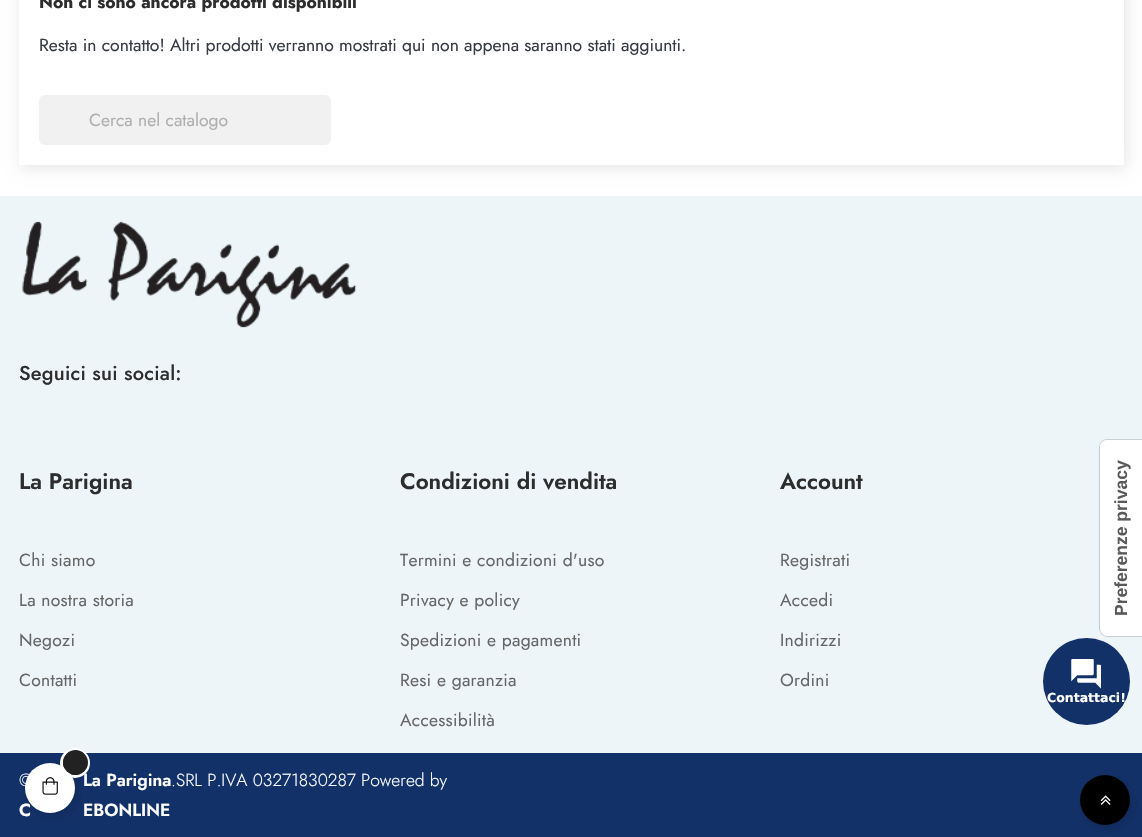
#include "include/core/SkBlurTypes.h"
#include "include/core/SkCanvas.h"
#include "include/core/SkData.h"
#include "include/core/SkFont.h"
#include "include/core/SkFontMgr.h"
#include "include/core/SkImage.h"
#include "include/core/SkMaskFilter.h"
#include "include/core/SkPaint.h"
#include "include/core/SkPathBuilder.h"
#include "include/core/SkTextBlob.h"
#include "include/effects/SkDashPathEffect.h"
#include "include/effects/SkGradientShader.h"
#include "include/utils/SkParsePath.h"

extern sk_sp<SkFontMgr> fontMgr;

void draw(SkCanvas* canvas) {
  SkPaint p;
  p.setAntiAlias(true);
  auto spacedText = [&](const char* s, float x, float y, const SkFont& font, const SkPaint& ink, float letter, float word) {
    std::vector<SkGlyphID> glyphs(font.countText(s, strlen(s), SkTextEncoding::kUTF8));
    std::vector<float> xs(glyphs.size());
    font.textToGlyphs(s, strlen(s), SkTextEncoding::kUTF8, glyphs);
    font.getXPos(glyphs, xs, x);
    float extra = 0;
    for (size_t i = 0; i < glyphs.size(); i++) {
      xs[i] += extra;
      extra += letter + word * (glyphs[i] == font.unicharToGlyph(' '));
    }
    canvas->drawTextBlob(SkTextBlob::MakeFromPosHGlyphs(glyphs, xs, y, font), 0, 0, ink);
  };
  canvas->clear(SK_ColorWHITE);
  p.setColor(SkColorSetARGB(26, 0, 0, 0));
  p.setMaskFilter(SkMaskFilter::MakeBlur(kNormal_SkBlurStyle, 7));
  canvas->drawRect(SkRect::MakeLTRB(21, -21, 1126, 168), p);
  p.setMaskFilter(nullptr);
  p.setColor(SK_ColorWHITE);
  canvas->drawRect(SkRect::MakeLTRB(19, 0, 1124, 165), p);
  p.setColor(SkColorSetRGB(241, 241, 241));
  canvas->drawRoundRect(SkRect::MakeLTRB(39, 95, 331, 145), 6, 6, p);
  p.setColor(SkColorSetRGB(237, 245, 249));
  canvas->drawRect(SkRect::MakeLTRB(0, 196, 1142, 753), p);
  canvas->drawImageRect(SkImages::DeferredFromEncodedData(SkData::MakeFromFileName("images/1.png")), SkRect::MakeLTRB(22, 221, 357, 328), SkSamplingOptions());
  p.setColor(SkColorSetRGB(19, 49, 105));
  canvas->drawRect(SkRect::MakeLTRB(0, 753, 1142, 837), p);
  p.setColor(SkColorSetARGB(38, 0, 0, 0));
  p.setMaskFilter(SkMaskFilter::MakeBlur(kNormal_SkBlurStyle, 6));
  canvas->drawRoundRect(SkRect::MakeLTRB(1083, 779, 1133, 829), 25, 25, p);
  p.setMaskFilter(nullptr);
  p.setColor(SK_ColorBLACK);
  canvas->drawCircle(1105, 800, 25, p);
  canvas->drawImageRect(SkImages::DeferredFromEncodedData(SkData::MakeFromFileName("images/2.png")), SkRect::MakeLTRB(1100, 795, 1111, 805), SkSamplingOptions());
  p.setStyle(SkPaint::kStroke_Style);
  p.setStrokeWidth(1.2f);
  p.setColor(SkColorSetRGB(201, 208, 212));
  canvas->drawPath(SkPathBuilder().moveTo(1099.5f, 628).lineTo(1099.5f, 447.5f).cubicTo(1099.5f, 443, 1103, 439.5f, 1107.5f, 439.5f).lineTo(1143, 439.5f).lineTo(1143, 636.5f).lineTo(1107.5f, 636.5f).cubicTo(1103, 636.5f, 1099.5f, 632.5f, 1099.5f, 628).close().detach(), p);
  p.setStyle(SkPaint::kFill_Style);
  p.setColor(SK_ColorWHITE);
  canvas->drawPath(SkPathBuilder().moveTo(1100, 628).lineTo(1100, 447).cubicTo(1100, 443, 1103, 440, 1107, 440).lineTo(1142, 440).lineTo(1142, 636).lineTo(1107, 636).cubicTo(1103, 636, 1100, 632, 1100, 628).close().detach(), p);
  p.setColor(SkColorSetRGB(19, 49, 105));
  canvas->drawCircle(1086.5f, 681.5f, 43.5f, p);
  canvas->drawImageRect(SkImages::DeferredFromEncodedData(SkData::MakeFromFileName("images/3.png")), SkRect::MakeLTRB(1071, 659, 1101, 689), SkSamplingOptions());
  p.setColor(SkColorSetARGB(38, 0, 0, 0));
  p.setMaskFilter(SkMaskFilter::MakeBlur(kNormal_SkBlurStyle, 6));
  canvas->drawRoundRect(SkRect::MakeLTRB(28, 766, 78, 816), 25, 25, p);
  p.setMaskFilter(nullptr);
  p.setColor(SK_ColorWHITE);
  canvas->drawCircle(50, 788, 25, p);
  canvas->drawImageRect(SkImages::DeferredFromEncodedData(SkData::MakeFromFileName("images/4.png")), SkRect::MakeLTRB(42, 777, 58, 795), SkSamplingOptions());
  p.setStyle(SkPaint::kStroke_Style);
  p.setStrokeWidth(3);
  canvas->drawCircle(75, 763, 13.5f, p);
  SkFont font1(fontMgr->matchFamilyStyle("Jost", SkFontStyle::Bold()), 17.5f);
  font1.setSubpixel(true);
  p.setStyle(SkPaint::kFill_Style);
  p.setColor(SkColorSetRGB(45, 45, 45));
  canvas->drawString("Non ci sono ancora prodotti disponibili", 39, 8, font1, p);
  SkFont font2(fontMgr->matchFamilyStyle("Jost", SkFontStyle::Normal()), 17.5f);
  font2.setSubpixel(true);
  p.setColor(SkColorSetRGB(54, 58, 66));
  canvas->drawString("Resta in contatto! Altri prodotti verranno mostrati qui non appena saranno stati aggiunti.", 39, 51, font2, p);
  p.setColor(SkColorSetRGB(175, 175, 175));
  canvas->drawString("Cerca nel catalogo", 89, 126, font2, p);
  SkFont font3(fontMgr->matchFamilyStyle("Jost", SkFontStyle(500, SkFontStyle::kNormal_Width, SkFontStyle::kUpright_Slant)), 20);
  font3.setSubpixel(true);
  p.setColor(SkColorSetRGB(45, 45, 45));
  spacedText("Seguici sui social:", 19, 380, font3, p, 0.25f, 0);
  SkFont font4(fontMgr->matchFamilyStyle("Jost", SkFontStyle(600, SkFontStyle::kNormal_Width, SkFontStyle::kUpright_Slant)), 22.5f);
  font4.setSubpixel(true);
  canvas->drawString("La Parigina", 19, 489, font4, p);
  p.setColor(SkColorSetRGB(102, 102, 102));
  spacedText("Chi siamo", 19, 566, font2, p, 0.25f, 0);
  spacedText("La nostra storia", 19, 606, font2, p, 0.25f, 0);
  spacedText("Negozi", 19, 646, font2, p, 0.25f, 0);
  spacedText("Contatti", 19, 686, font2, p, 0.25f, 0);
  p.setColor(SkColorSetRGB(45, 45, 45));
  canvas->drawString("Condizioni di vendita", 400, 489, font4, p);
  p.setColor(SkColorSetRGB(102, 102, 102));
  spacedText("Termini e condizioni d'uso", 400, 566, font2, p, 0.25f, 0);
  spacedText("Privacy e policy", 400, 606, font2, p, 0.25f, 0);
  spacedText("Spedizioni e pagamenti", 400, 646, font2, p, 0.25f, 0);
  spacedText("Resi e garanzia", 400, 686, font2, p, 0.25f, 0);
  spacedText("Accessibilità", 400, 726, font2, p, 0.25f, 0);
  p.setColor(SkColorSetRGB(45, 45, 45));
  canvas->drawString("Account", 780, 489, font4, p);
  p.setColor(SkColorSetRGB(102, 102, 102));
  spacedText("Registrati", 780, 566, font2, p, 0.25f, 0);
  spacedText("Accedi", 780, 606, font2, p, 0.25f, 0);
  spacedText("Indirizzi", 780, 646, font2, p, 0.25f, 0);
  spacedText("Ordini", 780, 686, font2, p, 0.25f, 0);
  SkFont font5(fontMgr->matchFamilyStyle("Jost", SkFontStyle(300, SkFontStyle::kNormal_Width, SkFontStyle::kUpright_Slant)), 17.5f);
  font5.setSubpixel(true);
  p.setColor(SK_ColorWHITE);
  canvas->drawString("©", 19, 786, font5, p);
  SkFont font6(fontMgr->matchFamilyStyle("Jost", SkFontStyle(600, SkFontStyle::kNormal_Width, SkFontStyle::kUpright_Slant)), 17.5f);
  font6.setSubpixel(true);
  canvas->drawString("La Parigina", 83, 786, font6, p);
  canvas->drawString(".SRL P.IVA 03271830287 Powered by", 171, 786, font5, p);
  canvas->drawString("C", 19, 816, font6, p);
  canvas->drawString("EBONLINE", 83, 816, font6, p);
  SkFont font7(fontMgr->matchFamilyStyle("Liberation Sans", SkFontStyle::Bold()), 17.5f);
  font7.setSubpixel(true);
  p.setColor(SkColorSetRGB(89, 89, 89));
  canvas->save();
  canvas->rotate(-90, 1127, 616);
  canvas->drawString("Preferenze privacy", 1127, 616, font7, p);
  canvas->restore();
  SkFont font8(fontMgr->matchFamilyStyle("DejaVu Sans", SkFontStyle::Bold()), 12.5f);
  font8.setSubpixel(true);
  p.setColor(SK_ColorWHITE);
  canvas->drawString("Contattaci!", 1047, 702, font8, p);
  p.setColor(SkColorSetRGB(34, 34, 34));
  canvas->drawCircle(75.5f, 762.5f, 12.5f, p);
}
